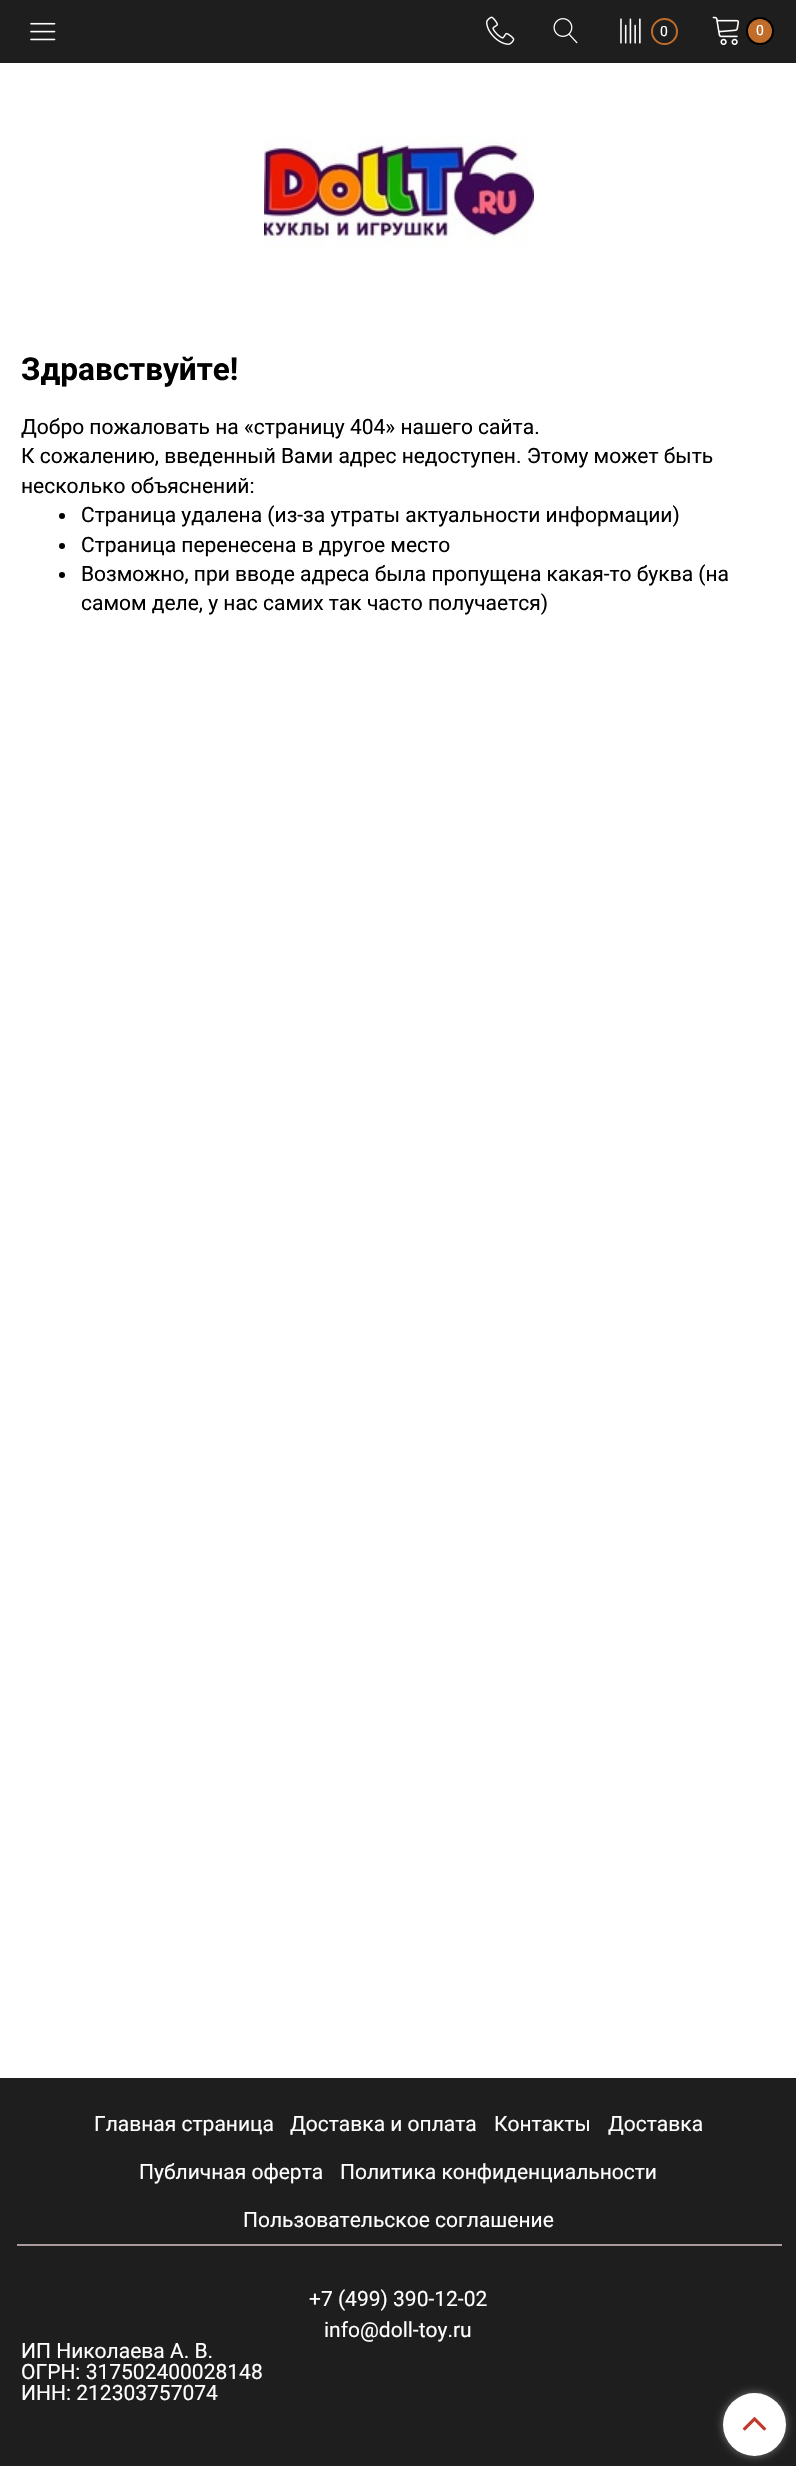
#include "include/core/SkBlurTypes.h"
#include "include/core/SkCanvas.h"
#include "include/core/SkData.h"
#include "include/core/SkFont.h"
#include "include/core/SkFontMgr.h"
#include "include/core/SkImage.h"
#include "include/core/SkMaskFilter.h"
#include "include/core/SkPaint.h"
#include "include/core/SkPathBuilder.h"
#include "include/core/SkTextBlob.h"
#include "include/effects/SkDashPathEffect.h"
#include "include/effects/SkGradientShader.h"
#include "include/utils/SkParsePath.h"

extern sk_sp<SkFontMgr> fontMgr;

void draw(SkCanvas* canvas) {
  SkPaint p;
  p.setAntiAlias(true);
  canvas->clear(SK_ColorWHITE);
  p.setColor(SkColorSetRGB(30, 30, 30));
  canvas->drawRect(SkRect::MakeLTRB(0, 0, 796, 63), p);
  canvas->drawImageRect(SkImages::DeferredFromEncodedData(SkData::MakeFromFileName("images/1.png")), SkRect::MakeLTRB(30, 22, 56, 41), SkSamplingOptions());
  canvas->drawImageRect(SkImages::DeferredFromEncodedData(SkData::MakeFromFileName("images/2.png")), SkRect::MakeLTRB(486, 16, 515, 45), SkSamplingOptions());
  canvas->drawImageRect(SkImages::DeferredFromEncodedData(SkData::MakeFromFileName("images/3.png")), SkRect::MakeLTRB(553, 18, 578, 44), SkSamplingOptions());
  canvas->drawImageRect(SkImages::DeferredFromEncodedData(SkData::MakeFromFileName("images/4.png")), SkRect::MakeLTRB(620, 18, 641, 44), SkSamplingOptions());
  p.setStyle(SkPaint::kStroke_Style);
  p.setStrokeWidth(2);
  p.setColor(SkColorSetRGB(192, 108, 43));
  canvas->drawCircle(664.5f, 31.5f, 12.5f, p);
  canvas->drawImageRect(SkImages::DeferredFromEncodedData(SkData::MakeFromFileName("images/5.png")), SkRect::MakeLTRB(712, 16, 740, 46), SkSamplingOptions());
  p.setStyle(SkPaint::kFill_Style);
  canvas->drawCircle(760, 31, 13, p);
  p.setStyle(SkPaint::kStroke_Style);
  p.setColor(SK_ColorBLACK);
  canvas->drawCircle(760, 31, 13, p);
  canvas->drawImageRect(SkImages::DeferredFromEncodedData(SkData::MakeFromFileName("images/6.png")), SkRect::MakeLTRB(264, 134, 534, 249), SkSamplingOptions());
  p.setStyle(SkPaint::kFill_Style);
  canvas->drawCircle(62, 516, 3, p);
  canvas->drawCircle(62, 546, 3, p);
  canvas->drawCircle(62, 575, 3, p);
  p.setColor(SkColorSetRGB(30, 30, 30));
  canvas->drawRect(SkRect::MakeLTRB(0, 2078, 796, 2466), p);
  p.setColor(SkColorSetRGB(168, 155, 155));
  canvas->drawRect(SkRect::MakeLTRB(17, 2244, 782, 2246), p);
  p.setColor(SkColorSetRGB(119, 119, 119));
  p.setMaskFilter(SkMaskFilter::MakeBlur(kNormal_SkBlurStyle, 4));
  canvas->drawRoundRect(SkRect::MakeLTRB(723, 2393, 786, 2456), 31.5f, 31.5f, p);
  p.setMaskFilter(nullptr);
  p.setColor(SK_ColorWHITE);
  canvas->drawCircle(754.5f, 2424.5f, 31.5f, p);
  canvas->drawImageRect(SkImages::DeferredFromEncodedData(SkData::MakeFromFileName("images/7.png")), SkRect::MakeLTRB(742, 2417, 767, 2431), SkSamplingOptions());
  SkFont font1(fontMgr->matchFamilyStyle("Roboto", SkFontStyle::Normal()), 14);
  font1.setSubpixel(true);
  canvas->drawString("0", 660, 36, font1, p);
  canvas->drawString("0", 756, 35, font1, p);
  SkFont font2(fontMgr->matchFamilyStyle("Roboto", SkFontStyle::Bold()), 31.5f);
  font2.setSubpixel(true);
  p.setColor(SK_ColorBLACK);
  canvas->drawString("Здравствуйте!", 21, 380, font2, p);
  SkFont font3(fontMgr->matchFamilyStyle("Roboto", SkFontStyle::Normal()), 21);
  font3.setSubpixel(true);
  canvas->drawString("Добро пожаловать на «страницу 404» нашего сайта.", 21, 434, font3, p);
  canvas->drawString("К сожалению, введенный Вами адрес недоступен. Этому может быть", 21, 463, font3, p);
  canvas->drawString("несколько объяснений:", 21, 493, font3, p);
  canvas->drawString("Страница удалена (из-за утраты актуальности информации)", 81, 522, font3, p);
  canvas->drawString("Страница перенесена в другое место", 81, 552, font3, p);
  canvas->drawString("Возможно, при вводе адреса была пропущена какая-то буква (на", 81, 581, font3, p);
  canvas->drawString("самом деле, у нас самих так часто получается)", 81, 610, font3, p);
  p.setColor(SK_ColorWHITE);
  canvas->drawString("Главная страница", 94, 2131, font3, p);
  canvas->drawString("Доставка и оплата", 290, 2131, font3, p);
  canvas->drawString("Контакты", 494, 2131, font3, p);
  canvas->drawString("Доставка", 608, 2131, font3, p);
  canvas->drawString("Публичная оферта", 139, 2179, font3, p);
  canvas->drawString("Политика конфиденциальности", 340, 2179, font3, p);
  canvas->drawString("Пользовательское соглашение", 243, 2227, font3, p);
  canvas->drawString("+7 (499) 390-12-02", 309, 2306, font3, p);
  canvas->drawString("info@doll-toy.ru", 324, 2337, font3, p);
  canvas->drawString("ИП Николаева А. В.", 21, 2358, font3, p);
  canvas->drawString("ОГРН: 317502400028148", 21, 2379, font3, p);
  canvas->drawString("ИНН: 212303757074", 21, 2400, font3, p);
}
